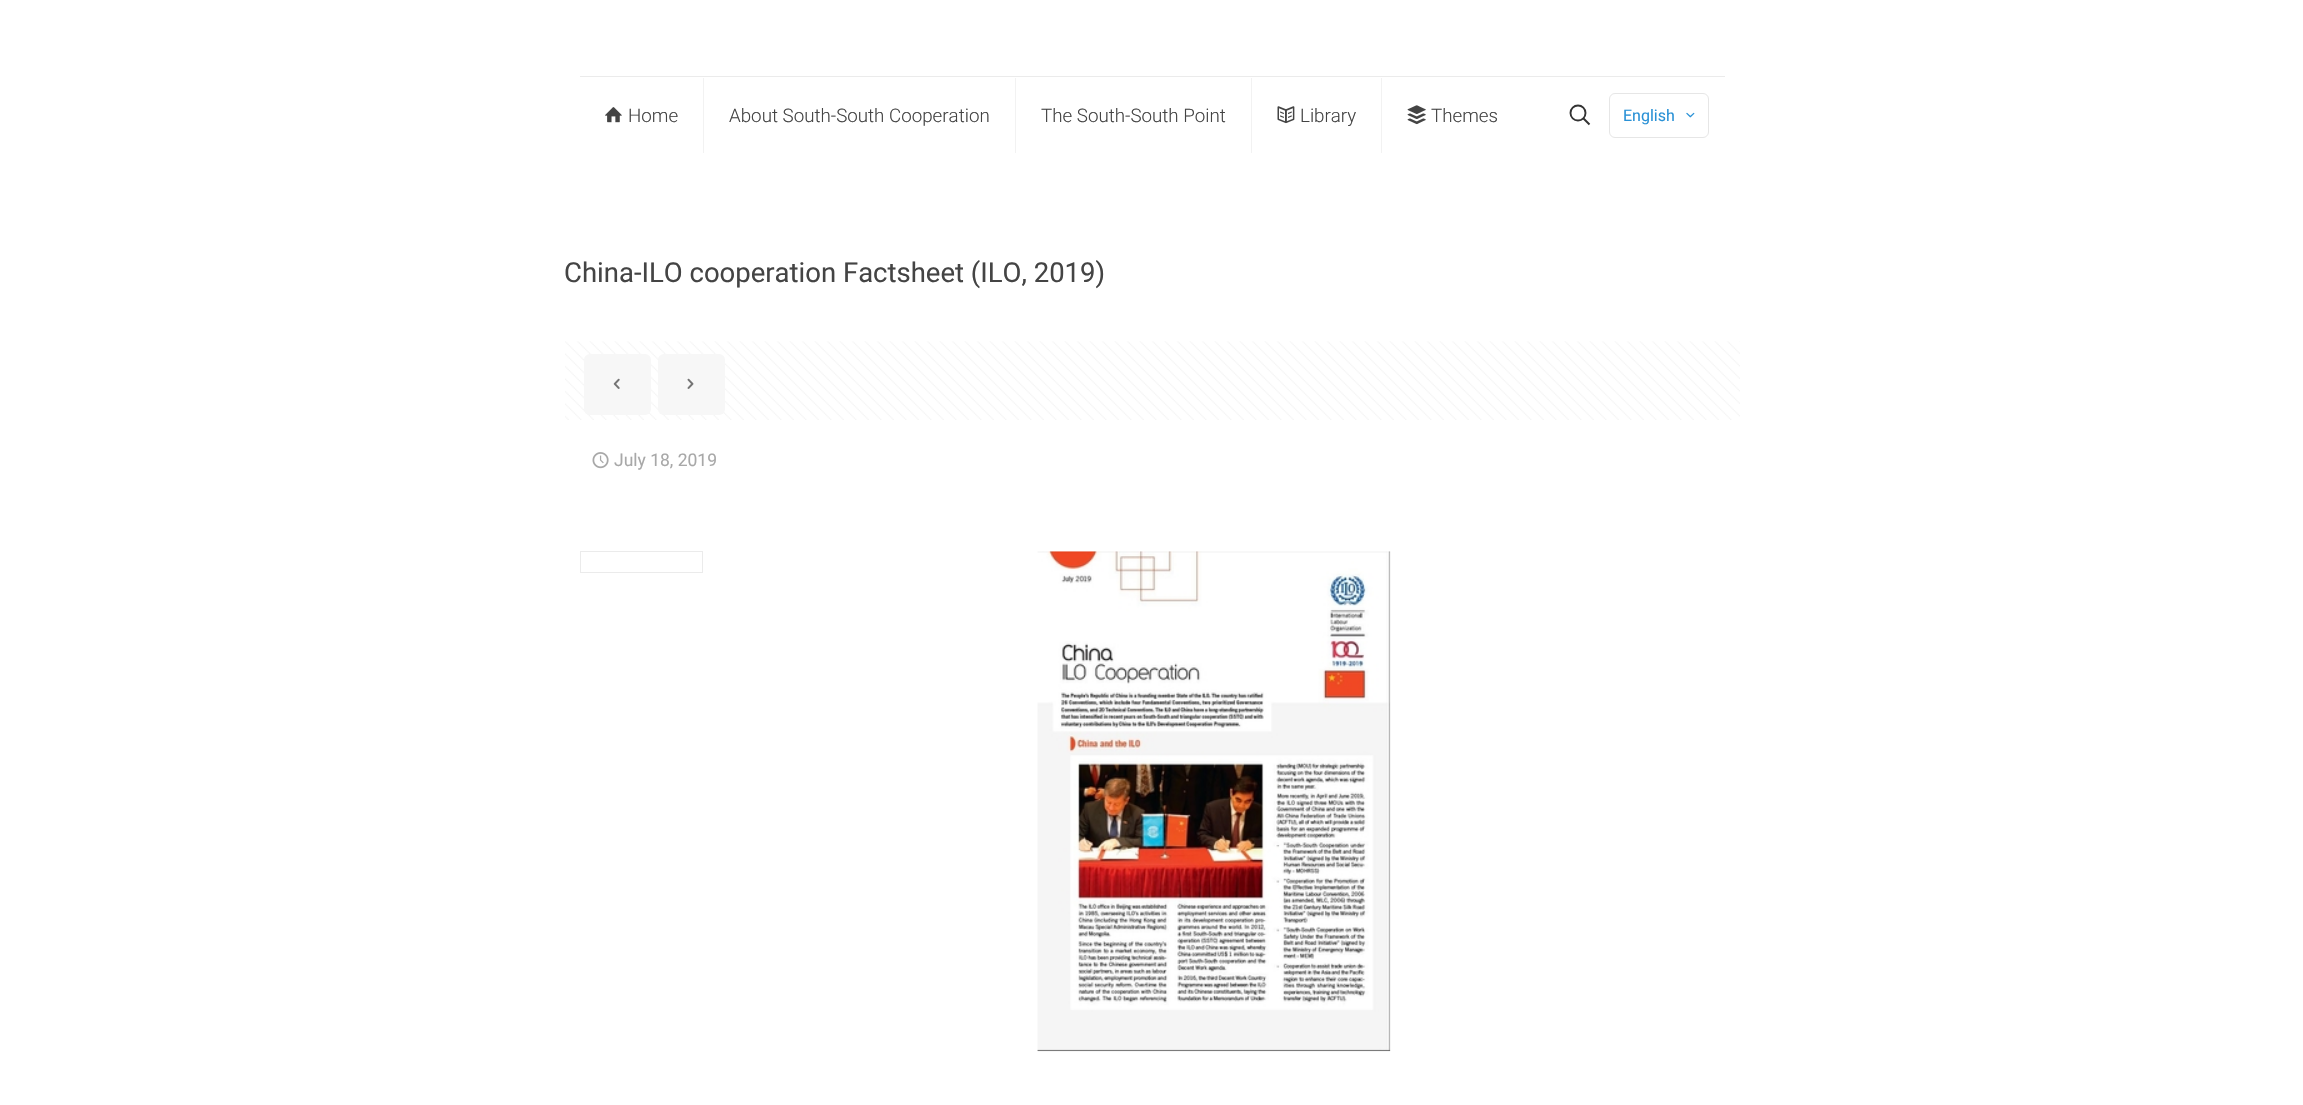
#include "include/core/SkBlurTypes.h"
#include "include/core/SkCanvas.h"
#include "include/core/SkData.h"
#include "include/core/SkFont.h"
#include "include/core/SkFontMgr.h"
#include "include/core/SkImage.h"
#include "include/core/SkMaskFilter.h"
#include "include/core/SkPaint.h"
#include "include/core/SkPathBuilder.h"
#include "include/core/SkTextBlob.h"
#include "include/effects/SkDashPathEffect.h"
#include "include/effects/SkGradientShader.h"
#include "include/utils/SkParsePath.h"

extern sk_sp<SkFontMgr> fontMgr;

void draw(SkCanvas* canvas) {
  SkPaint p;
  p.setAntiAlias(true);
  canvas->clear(SK_ColorWHITE);
  p.setColor(SkColorSetRGB(235, 235, 235));
  canvas->drawRect(SkRect::MakeLTRB(580, 76, 1725, 77), p);
  p.setColor(SkColorSetRGB(242, 242, 242));
  canvas->drawRect(SkRect::MakeLTRB(703, 78, 704, 153), p);
  canvas->drawImageRect(SkImages::DeferredFromEncodedData(SkData::MakeFromFileName("images/1.png")), SkRect::MakeLTRB(605, 107, 622, 123), SkSamplingOptions());
  canvas->drawRect(SkRect::MakeLTRB(1015, 78, 1016, 153), p);
  canvas->drawRect(SkRect::MakeLTRB(1251, 78, 1252, 153), p);
  canvas->drawRect(SkRect::MakeLTRB(1381, 78, 1382, 153), p);
  canvas->drawImageRect(SkImages::DeferredFromEncodedData(SkData::MakeFromFileName("images/2.png")), SkRect::MakeLTRB(1277, 106, 1295, 124), SkSamplingOptions());
  canvas->drawImageRect(SkImages::DeferredFromEncodedData(SkData::MakeFromFileName("images/3.png")), SkRect::MakeLTRB(1407, 105, 1426, 125), SkSamplingOptions());
  p.setStyle(SkPaint::kStroke_Style);
  p.setStrokeWidth(1.9f);
  p.setColor(SkColorSetRGB(51, 51, 51));
  canvas->drawCircle(1578, 113, 7.5f, p);
  canvas->drawPath(SkPathBuilder().moveTo(1583, 118).lineTo(1589.5f, 124.5f).detach(), p);
  p.setStrokeWidth(1);
  p.setColor(SkColorSetRGB(230, 230, 230));
  canvas->drawRoundRect(SkRect::MakeLTRB(1609.5f, 93.5f, 1708.5f, 137.5f), 5.5f, 5.5f, p);
  canvas->drawImageRect(SkImages::DeferredFromEncodedData(SkData::MakeFromFileName("images/4.png")), SkRect::MakeLTRB(1686, 112, 1695, 118), SkSamplingOptions());
  canvas->drawImageRect(SkImages::DeferredFromEncodedData(SkData::MakeFromFileName("images/5.png")), SkRect::MakeLTRB(565, 341, 1740, 420), SkSamplingOptions());
  p.setStyle(SkPaint::kFill_Style);
  p.setColor(SkColorSetRGB(247, 247, 247));
  canvas->drawRoundRect(SkRect::MakeLTRB(584, 354, 651, 415), 6, 6, p);
  canvas->drawImageRect(SkImages::DeferredFromEncodedData(SkData::MakeFromFileName("images/6.png")), SkRect::MakeLTRB(613, 378, 620, 389), SkSamplingOptions());
  canvas->drawRoundRect(SkRect::MakeLTRB(658, 354, 725, 415), 6, 6, p);
  canvas->drawImageRect(SkImages::DeferredFromEncodedData(SkData::MakeFromFileName("images/7.png")), SkRect::MakeLTRB(687, 378, 694, 389), SkSamplingOptions());
  canvas->drawImageRect(SkImages::DeferredFromEncodedData(SkData::MakeFromFileName("images/8.png")), SkRect::MakeLTRB(592, 452, 609, 469), SkSamplingOptions());
  p.setStyle(SkPaint::kStroke_Style);
  p.setColor(SkColorSetRGB(235, 235, 235));
  canvas->drawRect(SkRect::MakeLTRB(580.5f, 551.5f, 702.5f, 572.5f), p);
  canvas->drawImageRect(SkImages::DeferredFromEncodedData(SkData::MakeFromFileName("images/9.png")), SkRect::MakeLTRB(1037, 551, 1391, 1052), SkSamplingOptions());
  SkFont font1(fontMgr->matchFamilyStyle("Roboto", SkFontStyle(300, SkFontStyle::kNormal_Width, SkFontStyle::kUpright_Slant)), 18.75f);
  font1.setSubpixel(true);
  p.setStyle(SkPaint::kFill_Style);
  p.setColor(SkColorSetRGB(68, 68, 68));
  canvas->drawString("Home", 628, 122, font1, p);
  canvas->drawString("About South-South Cooperation", 729, 122, font1, p);
  canvas->drawString("The South-South Point", 1041, 122, font1, p);
  canvas->drawString("Library", 1300, 122, font1, p);
  canvas->drawString("Themes", 1431, 122, font1, p);
  SkFont font2(fontMgr->matchFamilyStyle("Roboto", SkFontStyle::Normal()), 16);
  font2.setSubpixel(true);
  p.setColor(SkColorSetRGB(41, 145, 214));
  canvas->drawString("English", 1623, 121, font2, p);
  SkFont font3(fontMgr->matchFamilyStyle("Roboto", SkFontStyle::Normal()), 27.5f);
  font3.setSubpixel(true);
  p.setColor(SkColorSetRGB(68, 68, 68));
  canvas->drawString("China-ILO cooperation Factsheet (ILO, 2019)", 564, 282, font3, p);
  SkFont font4(fontMgr->matchFamilyStyle("Roboto", SkFontStyle::Normal()), 17.5f);
  font4.setSubpixel(true);
  p.setColor(SkColorSetRGB(168, 168, 168));
  canvas->drawString("July 18, 2019", 614, 466, font4, p);
}
